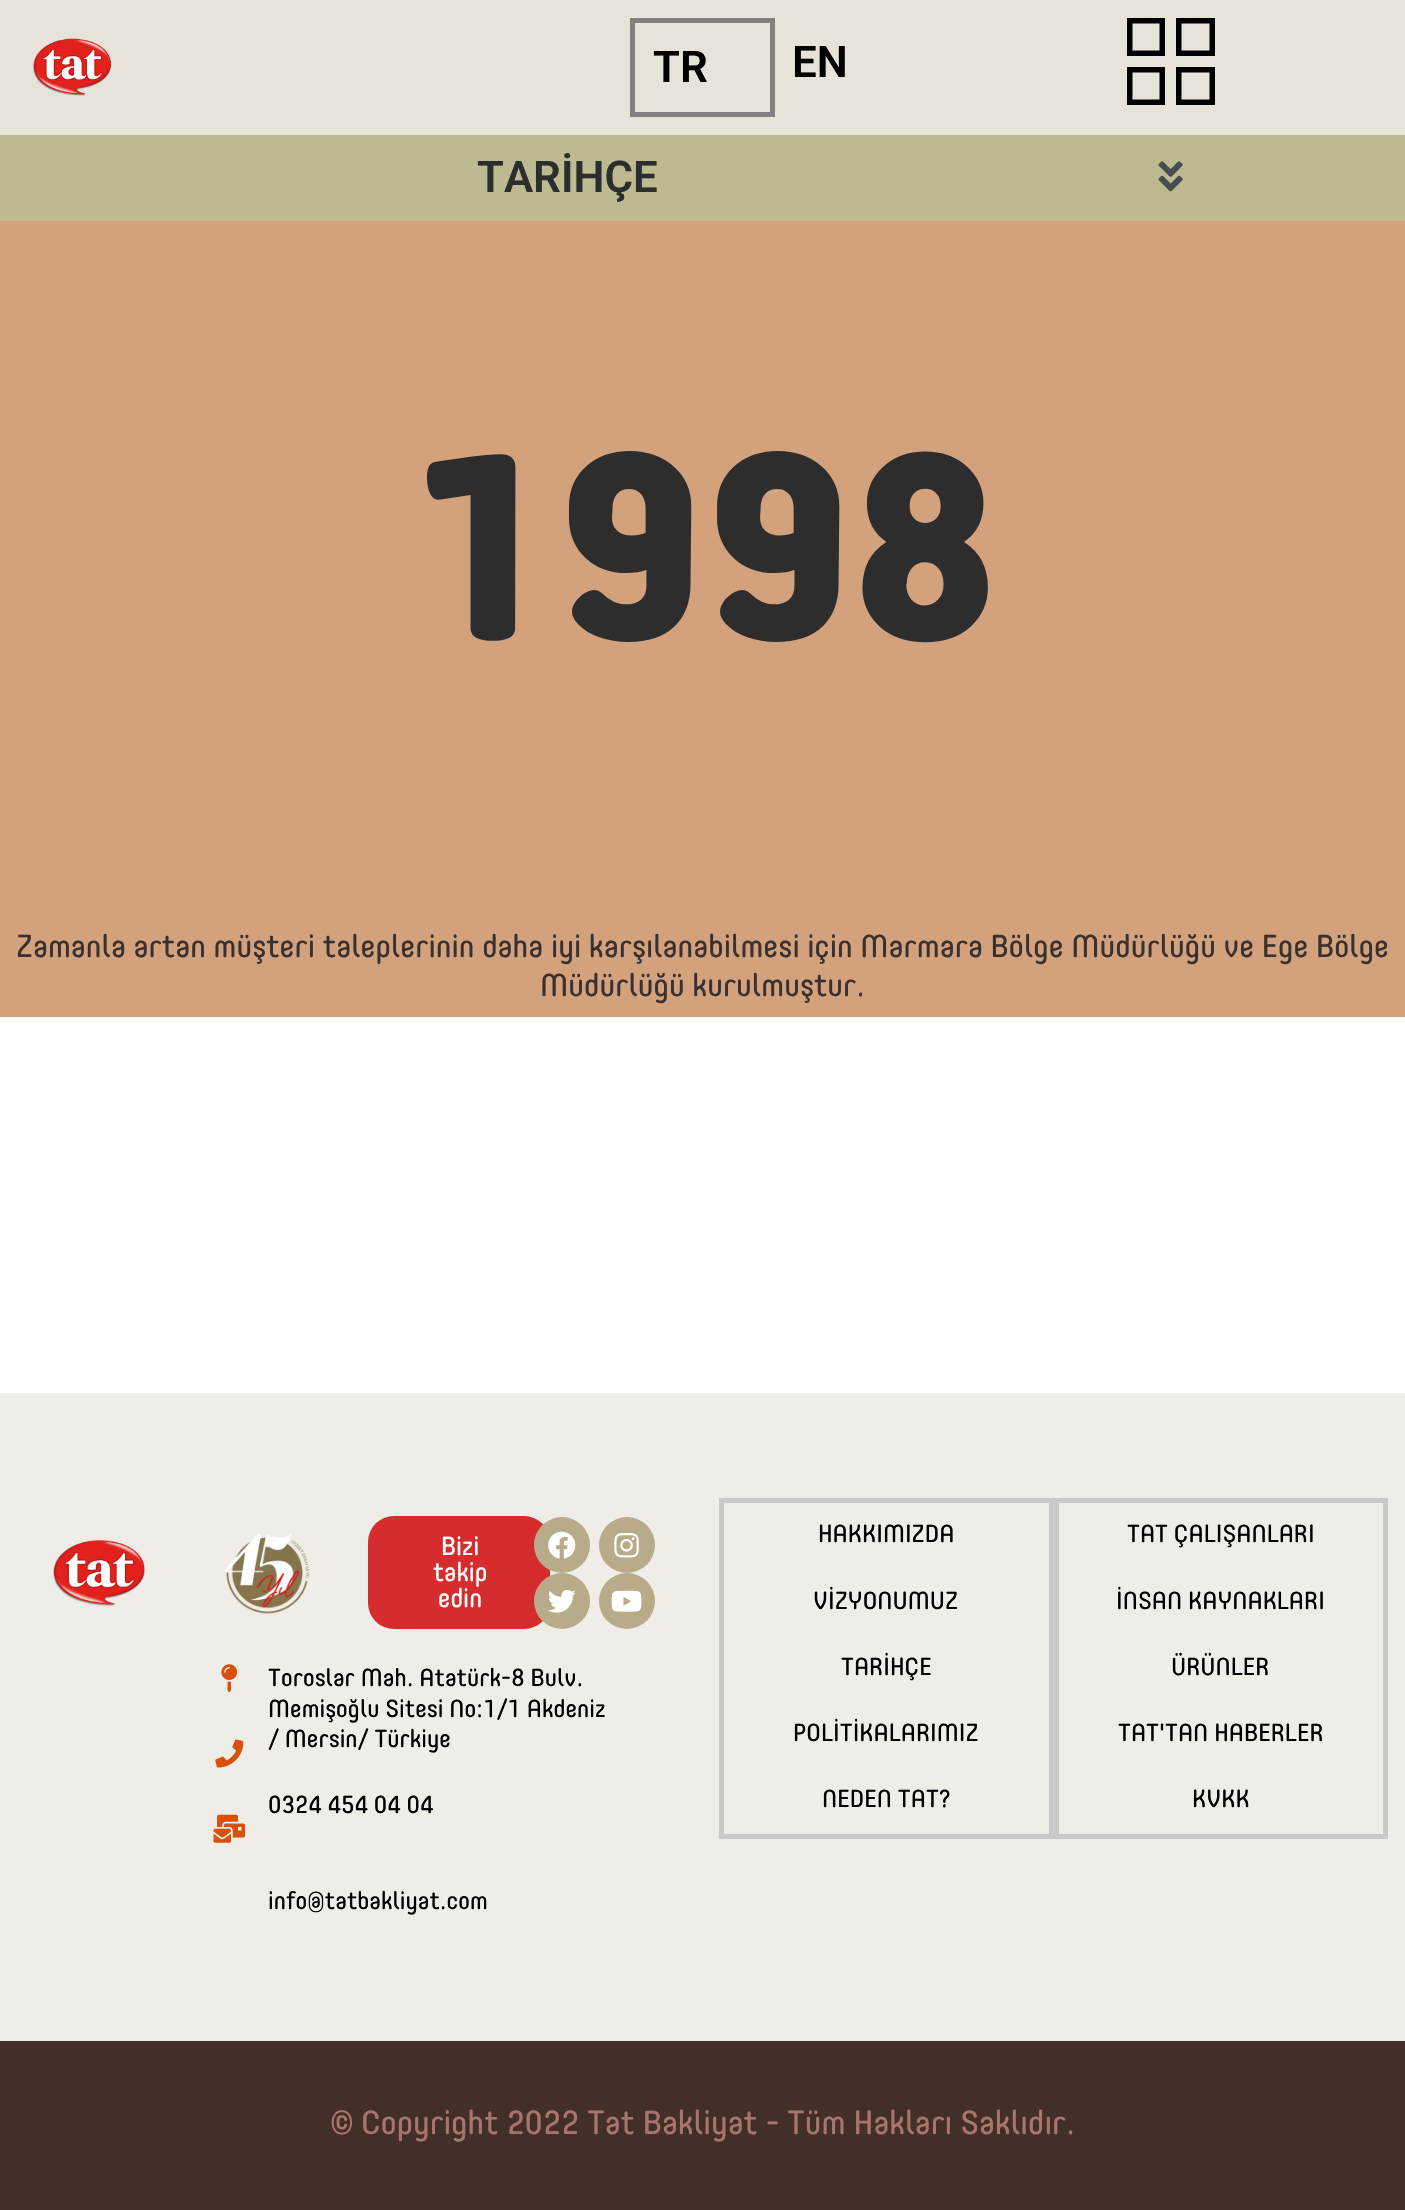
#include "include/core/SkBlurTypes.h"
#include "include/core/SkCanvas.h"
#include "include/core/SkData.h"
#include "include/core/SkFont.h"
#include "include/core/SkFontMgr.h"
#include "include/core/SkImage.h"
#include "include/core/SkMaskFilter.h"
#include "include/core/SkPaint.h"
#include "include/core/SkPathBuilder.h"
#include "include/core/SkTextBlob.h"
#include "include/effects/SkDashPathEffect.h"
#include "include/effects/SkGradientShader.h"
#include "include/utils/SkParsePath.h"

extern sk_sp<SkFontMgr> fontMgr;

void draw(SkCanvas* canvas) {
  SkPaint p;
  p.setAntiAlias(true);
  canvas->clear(SK_ColorWHITE);
  p.setColor(SkColorSetRGB(232, 227, 217));
  canvas->drawRect(SkRect::MakeLTRB(0, 0, 1405, 135), p);
  canvas->drawImageRect(SkImages::DeferredFromEncodedData(SkData::MakeFromFileName("images/1.png")), SkRect::MakeLTRB(32, 38, 112, 96), SkSamplingOptions());
  p.setStyle(SkPaint::kStroke_Style);
  p.setStrokeWidth(5);
  p.setColor(SkColorSetRGB(132, 127, 127));
  canvas->drawRect(SkRect::MakeLTRB(632.5f, 20.5f, 772.5f, 114.5f), p);
  p.setStrokeWidth(5.5f);
  p.setColor(SK_ColorBLACK);
  canvas->drawRect(SkRect::MakeLTRB(1129.75f, 20.75f, 1162.25f, 53.25f), p);
  canvas->drawRect(SkRect::MakeLTRB(1129.75f, 69.75f, 1162.25f, 102.25f), p);
  canvas->drawRect(SkRect::MakeLTRB(1178.75f, 69.75f, 1212.25f, 102.25f), p);
  canvas->drawRect(SkRect::MakeLTRB(1178.75f, 20.75f, 1212.25f, 53.25f), p);
  p.setStyle(SkPaint::kFill_Style);
  p.setColor(SkColorSetRGB(189, 186, 145));
  canvas->drawRect(SkRect::MakeLTRB(0, 135, 1405, 221), p);
  canvas->drawImageRect(SkImages::DeferredFromEncodedData(SkData::MakeFromFileName("images/2.png")), SkRect::MakeLTRB(1158, 161, 1183, 192), SkSamplingOptions());
  p.setColor(SkColorSetRGB(211, 161, 124));
  canvas->drawRect(SkRect::MakeLTRB(0, 221, 1405, 1017), p);
  p.setColor(SkColorSetRGB(240, 236, 231));
  canvas->drawRect(SkRect::MakeLTRB(0, 1393, 1405, 2041), p);
  canvas->drawImageRect(SkImages::DeferredFromEncodedData(SkData::MakeFromFileName("images/3.png")), SkRect::MakeLTRB(53, 1540, 145, 1606), SkSamplingOptions());
  canvas->drawImageRect(SkImages::DeferredFromEncodedData(SkData::MakeFromFileName("images/4.png")), SkRect::MakeLTRB(224, 1533, 310, 1614), SkSamplingOptions());
  p.setColor(SkColorSetRGB(213, 44, 46));
  canvas->drawRoundRect(SkRect::MakeLTRB(368, 1516, 550, 1629), 26, 26, p);
  p.setColor(SkColorSetRGB(184, 171, 138));
  canvas->drawCircle(562, 1545, 28, p);
  canvas->drawImageRect(SkImages::DeferredFromEncodedData(SkData::MakeFromFileName("images/5.png")), SkRect::MakeLTRB(548, 1531, 576, 1559), SkSamplingOptions());
  canvas->drawCircle(627, 1545, 28, p);
  canvas->drawImageRect(SkImages::DeferredFromEncodedData(SkData::MakeFromFileName("images/6.png")), SkRect::MakeLTRB(614, 1533, 639, 1558), SkSamplingOptions());
  canvas->drawCircle(562, 1601, 28, p);
  canvas->drawImageRect(SkImages::DeferredFromEncodedData(SkData::MakeFromFileName("images/7.png")), SkRect::MakeLTRB(548, 1589, 576, 1613), SkSamplingOptions());
  canvas->drawCircle(627, 1601, 28, p);
  canvas->drawImageRect(SkImages::DeferredFromEncodedData(SkData::MakeFromFileName("images/8.png")), SkRect::MakeLTRB(611, 1590, 642, 1612), SkSamplingOptions());
  canvas->drawImageRect(SkImages::DeferredFromEncodedData(SkData::MakeFromFileName("images/9.png")), SkRect::MakeLTRB(221, 1664, 238, 1693), SkSamplingOptions());
  canvas->drawImageRect(SkImages::DeferredFromEncodedData(SkData::MakeFromFileName("images/10.png")), SkRect::MakeLTRB(215, 1739, 244, 1768), SkSamplingOptions());
  canvas->drawImageRect(SkImages::DeferredFromEncodedData(SkData::MakeFromFileName("images/11.png")), SkRect::MakeLTRB(213, 1814, 245, 1843), SkSamplingOptions());
  p.setStyle(SkPaint::kStroke_Style);
  p.setStrokeWidth(5);
  p.setColor(SkColorSetRGB(203, 200, 200));
  canvas->drawRect(SkRect::MakeLTRB(721.5f, 1500.5f, 1051.5f, 1836.5f), p);
  canvas->drawRect(SkRect::MakeLTRB(1056.5f, 1500.5f, 1385.5f, 1836.5f), p);
  p.setStyle(SkPaint::kFill_Style);
  p.setColor(SkColorSetRGB(65, 47, 40));
  canvas->drawRect(SkRect::MakeLTRB(0, 2041, 1405, 2210), p);
  SkFont font1(fontMgr->matchFamilyStyle("Roboto", SkFontStyle(600, SkFontStyle::kNormal_Width, SkFontStyle::kUpright_Slant)), 43.75f);
  font1.setSubpixel(true);
  p.setColor(SK_ColorBLACK);
  canvas->drawString("TR", 653, 82, font1, p);
  canvas->drawString("EN", 792, 77, font1, p);
  p.setColor(SkColorSetRGB(45, 45, 45));
  canvas->drawString("TARİHÇE", 477, 192, font1, p);
  SkFont font2(fontMgr->matchFamilyStyle("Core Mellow", SkFontStyle(800, SkFontStyle::kNormal_Width, SkFontStyle::kUpright_Slant)), 262.5f);
  font2.setSubpixel(true);
  canvas->drawString("1998", 407, 639, font2, p);
  SkFont font3(fontMgr->matchFamilyStyle("Core Mellow", SkFontStyle::Normal()), 31.5f);
  font3.setSubpixel(true);
  p.setColor(SkColorSetRGB(57, 49, 49));
  canvas->drawString("Zamanla artan müşteri taleplerinin daha iyi karşılanabilmesi için Marmara Bölge Müdürlüğü ve Ege Bölge", 16, 957, font3, p);
  canvas->drawString("Müdürlüğü kurulmuştur.", 540, 996, font3, p);
  SkFont font4(fontMgr->matchFamilyStyle("Core Mellow", SkFontStyle::Normal()), 26);
  font4.setSubpixel(true);
  p.setColor(SK_ColorWHITE);
  canvas->drawString("Bizi", 441, 1555, font4, p);
  canvas->drawString("takip", 433, 1581, font4, p);
  canvas->drawString("edin", 438, 1607, font4, p);
  SkFont font5(fontMgr->matchFamilyStyle("Core Mellow", SkFontStyle::Normal()), 24.5f);
  font5.setSubpixel(true);
  p.setColor(SK_ColorBLACK);
  canvas->drawString("Toroslar Mah. Atatürk-8 Bulv.", 268, 1686, font5, p);
  canvas->drawString("Memişoğlu Sitesi No:1/1 Akdeniz", 268, 1717, font5, p);
  canvas->drawString("/ Mersin/ Türkiye", 268, 1747, font5, p);
  canvas->drawString("0324 454 04 04", 268, 1813, font5, p);
  canvas->drawString("info@tatbakliyat.com", 268, 1909, font5, p);
  canvas->drawString("HAKKIMIZDA", 818, 1542, font5, p);
  canvas->drawString("VİZYONUMUZ", 813, 1609, font5, p);
  canvas->drawString("TARİHÇE", 841, 1675, font5, p);
  canvas->drawString("POLİTİKALARIMIZ", 793, 1741, font5, p);
  canvas->drawString("NEDEN TAT?", 822, 1807, font5, p);
  canvas->drawString("TAT ÇALIŞANLARI", 1127, 1542, font5, p);
  canvas->drawString("İNSAN KAYNAKLARI", 1116, 1609, font5, p);
  canvas->drawString("ÜRÜNLER", 1171, 1675, font5, p);
  canvas->drawString("TAT'TAN HABERLER", 1118, 1741, font5, p);
  canvas->drawString("KVKK", 1192, 1807, font5, p);
  SkFont font6(fontMgr->matchFamilyStyle("Core Mellow", SkFontStyle::Normal()), 33.25f);
  font6.setSubpixel(true);
  p.setColor(SkColorSetRGB(169, 116, 110));
  canvas->drawString("© Copyright 2022 Tat Bakliyat - Tüm Hakları Saklıdır.", 331, 2134, font6, p);
}
